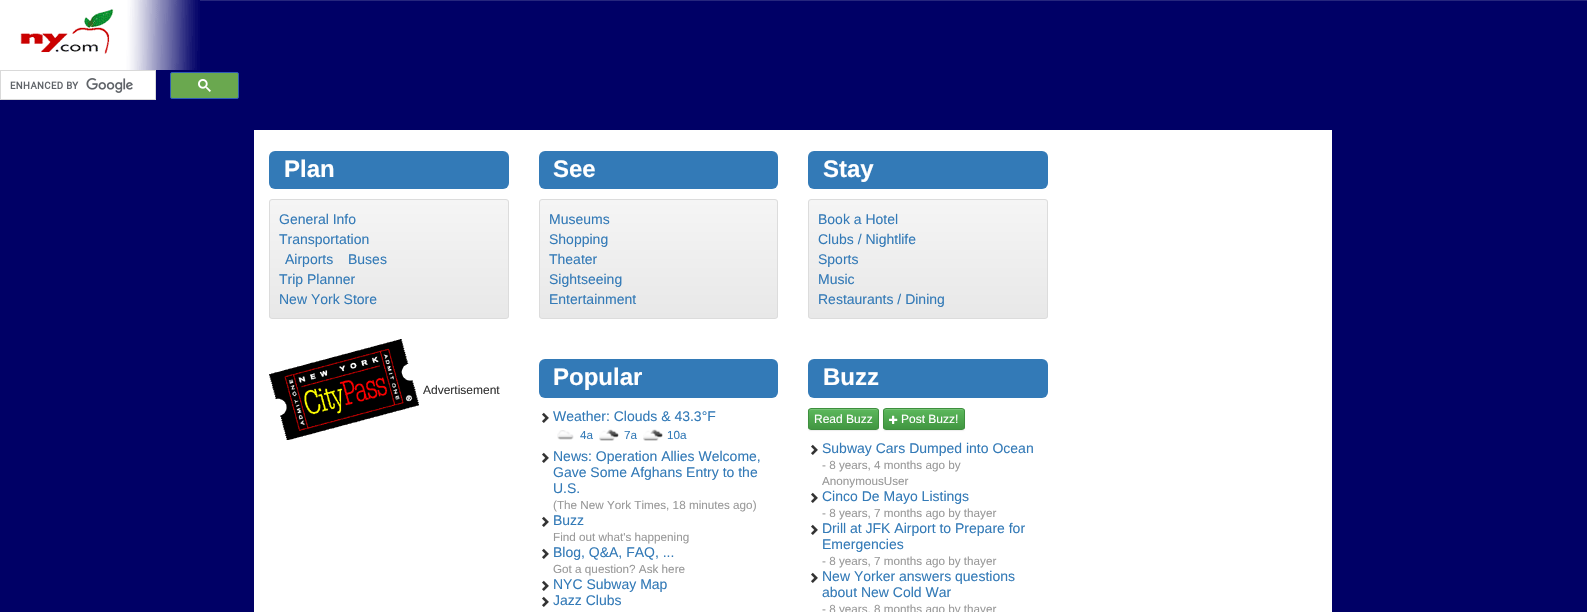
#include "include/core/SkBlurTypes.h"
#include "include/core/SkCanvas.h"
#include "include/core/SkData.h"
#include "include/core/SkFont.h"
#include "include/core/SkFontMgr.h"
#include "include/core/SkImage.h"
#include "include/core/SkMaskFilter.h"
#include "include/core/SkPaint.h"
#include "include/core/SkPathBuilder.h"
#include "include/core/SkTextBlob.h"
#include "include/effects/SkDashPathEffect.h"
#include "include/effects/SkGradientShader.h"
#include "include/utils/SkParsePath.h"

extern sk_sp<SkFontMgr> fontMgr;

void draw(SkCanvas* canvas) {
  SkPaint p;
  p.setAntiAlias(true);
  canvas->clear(SkColorSetRGB(0, 0, 102));
  p.setColor(SkColorSetRGB(38, 38, 125));
  canvas->drawRect(SkRect::MakeLTRB(200, 0, 1587, 1), p);
  canvas->drawImageRect(SkImages::DeferredFromEncodedData(SkData::MakeFromFileName("images/1.png")), SkRect::MakeLTRB(0, 0, 200, 70), SkSamplingOptions());
  p.setColor(SK_ColorWHITE);
  canvas->drawRect(SkRect::MakeLTRB(0.5f, 70.5f, 155.5f, 99.5f), p);
  p.setStyle(SkPaint::kStroke_Style);
  p.setStrokeWidth(1);
  p.setColor(SkColorSetRGB(217, 217, 217));
  canvas->drawRect(SkRect::MakeLTRB(0.5f, 70.5f, 155.5f, 99.5f), p);
  canvas->drawImageRect(SkImages::DeferredFromEncodedData(SkData::MakeFromFileName("images/2.png")), SkRect::MakeLTRB(10, 78, 133, 93), SkSamplingOptions());
  p.setStyle(SkPaint::kFill_Style);
  p.setColor(SkColorSetRGB(106, 168, 79));
  canvas->drawRoundRect(SkRect::MakeLTRB(170.5f, 72.5f, 238.5f, 98.5f), 1.5f, 1.5f, p);
  p.setStyle(SkPaint::kStroke_Style);
  p.setColor(SkColorSetRGB(47, 91, 183));
  canvas->drawRoundRect(SkRect::MakeLTRB(170.5f, 72.5f, 238.5f, 98.5f), 1.5f, 1.5f, p);
  canvas->drawImageRect(SkImages::DeferredFromEncodedData(SkData::MakeFromFileName("images/3.png")), SkRect::MakeLTRB(198, 79, 211, 92), SkSamplingOptions());
  p.setStyle(SkPaint::kFill_Style);
  p.setColor(SK_ColorWHITE);
  canvas->drawRect(SkRect::MakeLTRB(254, 130, 1332, 612), p);
  p.setColor(SkColorSetRGB(51, 122, 183));
  canvas->drawRoundRect(SkRect::MakeLTRB(269, 151, 509, 189), 6, 6, p);
  canvas->save();
  canvas->clipPath(SkPathBuilder().moveTo(272, 199).lineTo(506, 199).cubicTo(507.5f, 199, 509, 200.5f, 509, 202).lineTo(509, 316).cubicTo(509, 317.5f, 507.5f, 319, 506, 319).lineTo(272, 319).cubicTo(270.5f, 319, 269, 317.5f, 269, 316).lineTo(269, 202).cubicTo(269, 200.5f, 270.5f, 199, 272, 199).close().detach(), true);
  {
    const SkColor colors[] = {SkColorSetRGB(232, 232, 232), SkColorSetRGB(245, 245, 245)};
    const float stops[] = {0, 1};
    const SkPoint ends[] = {{389, 318}, {389, 200}};
    p.setShader(SkGradientShader::MakeLinear(ends, colors, stops, 2, SkTileMode::kClamp));
    p.setAlpha(255);
  }
  canvas->drawRect(SkRect::MakeLTRB(269, 200, 509, 318), p);
  canvas->restore();
  p.setStyle(SkPaint::kStroke_Style);
  p.setShader(nullptr);
  p.setColor(SkColorSetRGB(220, 220, 220));
  canvas->drawRoundRect(SkRect::MakeLTRB(269.5f, 199.5f, 508.5f, 318.5f), 2.5f, 2.5f, p);
  p.setStyle(SkPaint::kFill_Style);
  p.setColor(SkColorSetRGB(51, 122, 183));
  canvas->drawRoundRect(SkRect::MakeLTRB(539, 151, 778, 189), 6, 6, p);
  canvas->save();
  canvas->clipPath(SkPathBuilder().moveTo(542, 199).lineTo(775, 199).cubicTo(776.5f, 199, 778, 200.5f, 778, 202).lineTo(778, 316).cubicTo(778, 317.5f, 776.5f, 319, 775, 319).lineTo(542, 319).cubicTo(540.5f, 319, 539, 317.5f, 539, 316).lineTo(539, 202).cubicTo(539, 200.5f, 540.5f, 199, 542, 199).close().detach(), true);
  {
    const SkColor colors[] = {SkColorSetRGB(232, 232, 232), SkColorSetRGB(245, 245, 245)};
    const float stops[] = {0, 1};
    const SkPoint ends[] = {{659, 318}, {659, 200}};
    p.setShader(SkGradientShader::MakeLinear(ends, colors, stops, 2, SkTileMode::kClamp));
    p.setAlpha(255);
  }
  canvas->drawRect(SkRect::MakeLTRB(539, 200, 778, 318), p);
  canvas->restore();
  p.setStyle(SkPaint::kStroke_Style);
  p.setShader(nullptr);
  p.setColor(SkColorSetRGB(220, 220, 220));
  canvas->drawRoundRect(SkRect::MakeLTRB(539.5f, 199.5f, 777.5f, 318.5f), 2.5f, 2.5f, p);
  p.setStyle(SkPaint::kFill_Style);
  p.setColor(SkColorSetRGB(51, 122, 183));
  canvas->drawRoundRect(SkRect::MakeLTRB(808, 151, 1048, 189), 6, 6, p);
  canvas->save();
  canvas->clipPath(SkPathBuilder().moveTo(811, 199).lineTo(1045, 199).cubicTo(1046.5f, 199, 1048, 200.5f, 1048, 202).lineTo(1048, 316).cubicTo(1048, 317.5f, 1046.5f, 319, 1045, 319).lineTo(811, 319).cubicTo(809.5f, 319, 808, 317.5f, 808, 316).lineTo(808, 202).cubicTo(808, 200.5f, 809.5f, 199, 811, 199).close().detach(), true);
  {
    const SkColor colors[] = {SkColorSetRGB(232, 232, 232), SkColorSetRGB(245, 245, 245)};
    const float stops[] = {0, 1};
    const SkPoint ends[] = {{928, 318}, {928, 200}};
    p.setShader(SkGradientShader::MakeLinear(ends, colors, stops, 2, SkTileMode::kClamp));
    p.setAlpha(255);
  }
  canvas->drawRect(SkRect::MakeLTRB(808, 200, 1048, 318), p);
  canvas->restore();
  p.setStyle(SkPaint::kStroke_Style);
  p.setShader(nullptr);
  p.setColor(SkColorSetRGB(220, 220, 220));
  canvas->drawRoundRect(SkRect::MakeLTRB(808.5f, 199.5f, 1047.5f, 318.5f), 2.5f, 2.5f, p);
  canvas->drawImageRect(SkImages::DeferredFromEncodedData(SkData::MakeFromFileName("images/4.png")), SkRect::MakeLTRB(269, 339, 419, 440), SkSamplingOptions());
  p.setStyle(SkPaint::kFill_Style);
  p.setColor(SkColorSetRGB(51, 122, 183));
  canvas->drawRoundRect(SkRect::MakeLTRB(539, 359, 778, 398), 6, 6, p);
  canvas->drawImageRect(SkImages::DeferredFromEncodedData(SkData::MakeFromFileName("images/5.png")), SkRect::MakeLTRB(542, 412, 549, 423), SkSamplingOptions());
  canvas->drawImageRect(SkImages::DeferredFromEncodedData(SkData::MakeFromFileName("images/6.png")), SkRect::MakeLTRB(557, 430, 574, 440), SkSamplingOptions());
  canvas->drawImageRect(SkImages::DeferredFromEncodedData(SkData::MakeFromFileName("images/7.png")), SkRect::MakeLTRB(599, 429, 619, 441), SkSamplingOptions());
  canvas->drawImageRect(SkImages::DeferredFromEncodedData(SkData::MakeFromFileName("images/8.png")), SkRect::MakeLTRB(643, 429, 663, 441), SkSamplingOptions());
  canvas->drawImageRect(SkImages::DeferredFromEncodedData(SkData::MakeFromFileName("images/5.png")), SkRect::MakeLTRB(542, 452, 549, 463), SkSamplingOptions());
  canvas->drawImageRect(SkImages::DeferredFromEncodedData(SkData::MakeFromFileName("images/5.png")), SkRect::MakeLTRB(542, 516, 549, 527), SkSamplingOptions());
  canvas->drawImageRect(SkImages::DeferredFromEncodedData(SkData::MakeFromFileName("images/5.png")), SkRect::MakeLTRB(542, 548, 549, 559), SkSamplingOptions());
  canvas->drawImageRect(SkImages::DeferredFromEncodedData(SkData::MakeFromFileName("images/5.png")), SkRect::MakeLTRB(542, 580, 549, 591), SkSamplingOptions());
  canvas->drawImageRect(SkImages::DeferredFromEncodedData(SkData::MakeFromFileName("images/5.png")), SkRect::MakeLTRB(542, 596, 549, 607), SkSamplingOptions());
  canvas->drawRoundRect(SkRect::MakeLTRB(808, 359, 1048, 398), 6, 6, p);
  p.setColor(SkColorSetARGB(18, 0, 0, 0));
  p.setMaskFilter(SkMaskFilter::MakeBlur(kNormal_SkBlurStyle, 0.5f));
  canvas->drawRoundRect(SkRect::MakeLTRB(808, 409, 879, 431), 3, 3, p);
  p.setMaskFilter(nullptr);
  canvas->save();
  canvas->clipPath(SkPathBuilder().moveTo(811, 408).lineTo(876, 408).cubicTo(877.5f, 408, 879, 409.5f, 879, 411).lineTo(879, 427).cubicTo(879, 428.5f, 877.5f, 430, 876, 430).lineTo(811, 430).cubicTo(809.5f, 430, 808, 428.5f, 808, 427).lineTo(808, 411).cubicTo(808, 409.5f, 809.5f, 408, 811, 408).close().detach(), true);
  {
    const SkColor colors[] = {SkColorSetRGB(92, 184, 92), SkColorSetRGB(65, 150, 65)};
    const float stops[] = {0, 1};
    const SkPoint ends[] = {{844, 409}, {844, 429}};
    p.setShader(SkGradientShader::MakeLinear(ends, colors, stops, 2, SkTileMode::kClamp));
    p.setAlpha(255);
  }
  canvas->drawRect(SkRect::MakeLTRB(808, 409, 879, 429), p);
  canvas->restore();
  p.setShader(nullptr);
  p.setColor(SkColorSetRGB(116, 194, 116));
  canvas->drawPath(SkPathBuilder().moveTo(811, 410).lineTo(877, 410).lineTo(878, 412).cubicTo(878, 406, 869, 409, 865, 409).lineTo(822, 409).cubicTo(818, 409, 809, 406, 809, 412).cubicTo(809, 411, 810, 410, 811, 410).close().detach(), p);
  p.setStyle(SkPaint::kStroke_Style);
  p.setColor(SkColorSetRGB(62, 143, 62));
  canvas->drawRoundRect(SkRect::MakeLTRB(808.5f, 408.5f, 878.5f, 429.5f), 2.5f, 2.5f, p);
  p.setStyle(SkPaint::kFill_Style);
  p.setColor(SkColorSetARGB(18, 0, 0, 0));
  p.setMaskFilter(SkMaskFilter::MakeBlur(kNormal_SkBlurStyle, 0.5f));
  canvas->drawRoundRect(SkRect::MakeLTRB(883, 409, 965, 431), 3, 3, p);
  p.setMaskFilter(nullptr);
  canvas->save();
  canvas->clipPath(SkPathBuilder().moveTo(886, 408).lineTo(962, 408).cubicTo(963.5f, 408, 965, 409.5f, 965, 411).lineTo(965, 427).cubicTo(965, 428.5f, 963.5f, 430, 962, 430).lineTo(886, 430).cubicTo(884.5f, 430, 883, 428.5f, 883, 427).lineTo(883, 411).cubicTo(883, 409.5f, 884.5f, 408, 886, 408).close().detach(), true);
  {
    const SkColor colors[] = {SkColorSetRGB(92, 184, 92), SkColorSetRGB(65, 150, 65)};
    const float stops[] = {0, 1};
    const SkPoint ends[] = {{924, 409}, {924, 429}};
    p.setShader(SkGradientShader::MakeLinear(ends, colors, stops, 2, SkTileMode::kClamp));
    p.setAlpha(255);
  }
  canvas->drawRect(SkRect::MakeLTRB(883, 409, 965, 429), p);
  canvas->restore();
  p.setShader(nullptr);
  p.setColor(SkColorSetRGB(116, 194, 116));
  canvas->drawPath(SkPathBuilder().moveTo(886, 410).lineTo(962, 410).cubicTo(963, 410, 964, 411, 964, 412).cubicTo(964, 406, 952, 409, 949, 409).lineTo(899, 409).cubicTo(896, 409, 884, 406, 884, 412).cubicTo(884, 411, 885, 410, 886, 410).close().detach(), p);
  p.setStyle(SkPaint::kStroke_Style);
  p.setColor(SkColorSetRGB(62, 143, 62));
  canvas->drawRoundRect(SkRect::MakeLTRB(883.5f, 408.5f, 964.5f, 429.5f), 2.5f, 2.5f, p);
  canvas->drawImageRect(SkImages::DeferredFromEncodedData(SkData::MakeFromFileName("images/9.png")), SkRect::MakeLTRB(889, 415, 898, 424), SkSamplingOptions());
  canvas->drawImageRect(SkImages::DeferredFromEncodedData(SkData::MakeFromFileName("images/5.png")), SkRect::MakeLTRB(811, 444, 818, 455), SkSamplingOptions());
  canvas->drawImageRect(SkImages::DeferredFromEncodedData(SkData::MakeFromFileName("images/5.png")), SkRect::MakeLTRB(811, 492, 818, 503), SkSamplingOptions());
  canvas->drawImageRect(SkImages::DeferredFromEncodedData(SkData::MakeFromFileName("images/5.png")), SkRect::MakeLTRB(811, 524, 818, 535), SkSamplingOptions());
  canvas->drawImageRect(SkImages::DeferredFromEncodedData(SkData::MakeFromFileName("images/5.png")), SkRect::MakeLTRB(811, 572, 818, 583), SkSamplingOptions());
  SkFont font1(fontMgr->matchFamilyStyle("Liberation Sans", SkFontStyle::Bold()), 24);
  font1.setSubpixel(true);
  p.setStyle(SkPaint::kFill_Style);
  p.setColor(SK_ColorWHITE);
  canvas->drawString("Plan", 284, 177, font1, p);
  SkFont font2(fontMgr->matchFamilyStyle("Liberation Sans", SkFontStyle::Normal()), 14);
  font2.setSubpixel(true);
  p.setColor(SkColorSetRGB(51, 122, 183));
  canvas->drawString("General Info", 279, 224, font2, p);
  canvas->drawString("Transportation", 279, 244, font2, p);
  canvas->drawString("Airports", 285, 264, font2, p);
  canvas->drawString("Buses", 348, 264, font2, p);
  canvas->drawString("Trip Planner", 279, 284, font2, p);
  canvas->drawString("New York Store", 279, 304, font2, p);
  p.setColor(SK_ColorWHITE);
  canvas->drawString("See", 553, 177, font1, p);
  p.setColor(SkColorSetRGB(51, 122, 183));
  canvas->drawString("Museums", 549, 224, font2, p);
  canvas->drawString("Shopping", 549, 244, font2, p);
  canvas->drawString("Theater", 549, 264, font2, p);
  canvas->drawString("Sightseeing", 549, 284, font2, p);
  canvas->drawString("Entertainment", 549, 304, font2, p);
  p.setColor(SK_ColorWHITE);
  canvas->drawString("Stay", 823, 177, font1, p);
  p.setColor(SkColorSetRGB(51, 122, 183));
  canvas->drawString("Book a Hotel", 818, 224, font2, p);
  canvas->drawString("Clubs / Nightlife", 818, 244, font2, p);
  canvas->drawString("Sports", 818, 264, font2, p);
  canvas->drawString("Music", 818, 284, font2, p);
  canvas->drawString("Restaurants / Dining", 818, 304, font2, p);
  SkFont font3(fontMgr->matchFamilyStyle("Liberation Sans", SkFontStyle::Normal()), 12);
  font3.setSubpixel(true);
  p.setColor(SkColorSetRGB(51, 51, 51));
  canvas->drawString("Advertisement", 423, 394, font3, p);
  p.setColor(SK_ColorWHITE);
  canvas->drawString("Popular", 553, 385, font1, p);
  p.setColor(SkColorSetRGB(51, 122, 183));
  canvas->drawString("Weather: Clouds & 43.3°F", 553, 421, font2, p);
  SkFont font4(fontMgr->matchFamilyStyle("Liberation Sans", SkFontStyle::Normal()), 11.7f);
  font4.setSubpixel(true);
  canvas->drawString("4a", 580, 439, font4, p);
  canvas->drawString("7a", 624, 439, font4, p);
  canvas->drawString("10a", 667, 439, font4, p);
  canvas->drawString("News: Operation Allies Welcome,", 553, 461, font2, p);
  canvas->drawString("Gave Some Afghans Entry to the", 553, 477, font2, p);
  canvas->drawString("U.S.", 553, 493, font2, p);
  p.setColor(SkColorSetRGB(153, 153, 153));
  canvas->drawString("(The New York Times, 18 minutes ago)", 553, 509, font4, p);
  p.setColor(SkColorSetRGB(51, 122, 183));
  canvas->drawString("Buzz", 553, 525, font2, p);
  p.setColor(SkColorSetRGB(153, 153, 153));
  canvas->drawString("Find out what's happening", 553, 541, font4, p);
  p.setColor(SkColorSetRGB(51, 122, 183));
  canvas->drawString("Blog, Q&A, FAQ, ...", 553, 557, font2, p);
  p.setColor(SkColorSetRGB(153, 153, 153));
  canvas->drawString("Got a question? Ask here", 553, 573, font4, p);
  p.setColor(SkColorSetRGB(51, 122, 183));
  canvas->drawString("NYC Subway Map", 553, 589, font2, p);
  canvas->drawString("Jazz Clubs", 553, 605, font2, p);
  p.setColor(SK_ColorWHITE);
  canvas->drawString("Buzz", 823, 385, font1, p);
  canvas->drawString("Read Buzz", 814, 423, font3, p);
  canvas->drawString("Post Buzz!", 901, 423, font3, p);
  p.setColor(SkColorSetRGB(51, 122, 183));
  canvas->drawString("Subway Cars Dumped into Ocean", 822, 453, font2, p);
  p.setColor(SkColorSetRGB(153, 153, 153));
  canvas->drawString("- 8 years, 4 months ago by", 822, 469, font4, p);
  canvas->drawString("AnonymousUser", 822, 485, font4, p);
  p.setColor(SkColorSetRGB(51, 122, 183));
  canvas->drawString("Cinco De Mayo Listings", 822, 501, font2, p);
  p.setColor(SkColorSetRGB(153, 153, 153));
  canvas->drawString("- 8 years, 7 months ago by thayer", 822, 517, font4, p);
  p.setColor(SkColorSetRGB(51, 122, 183));
  canvas->drawString("Drill at JFK Airport to Prepare for", 822, 533, font2, p);
  canvas->drawString("Emergencies", 822, 549, font2, p);
  p.setColor(SkColorSetRGB(153, 153, 153));
  canvas->drawString("- 8 years, 7 months ago by thayer", 822, 565, font4, p);
  p.setColor(SkColorSetRGB(51, 122, 183));
  canvas->drawString("New Yorker answers questions", 822, 581, font2, p);
  canvas->drawString("about New Cold War", 822, 597, font2, p);
  p.setColor(SkColorSetRGB(153, 153, 153));
  canvas->drawString("- 8 years, 8 months ago by thayer", 822, 613, font4, p);
}
